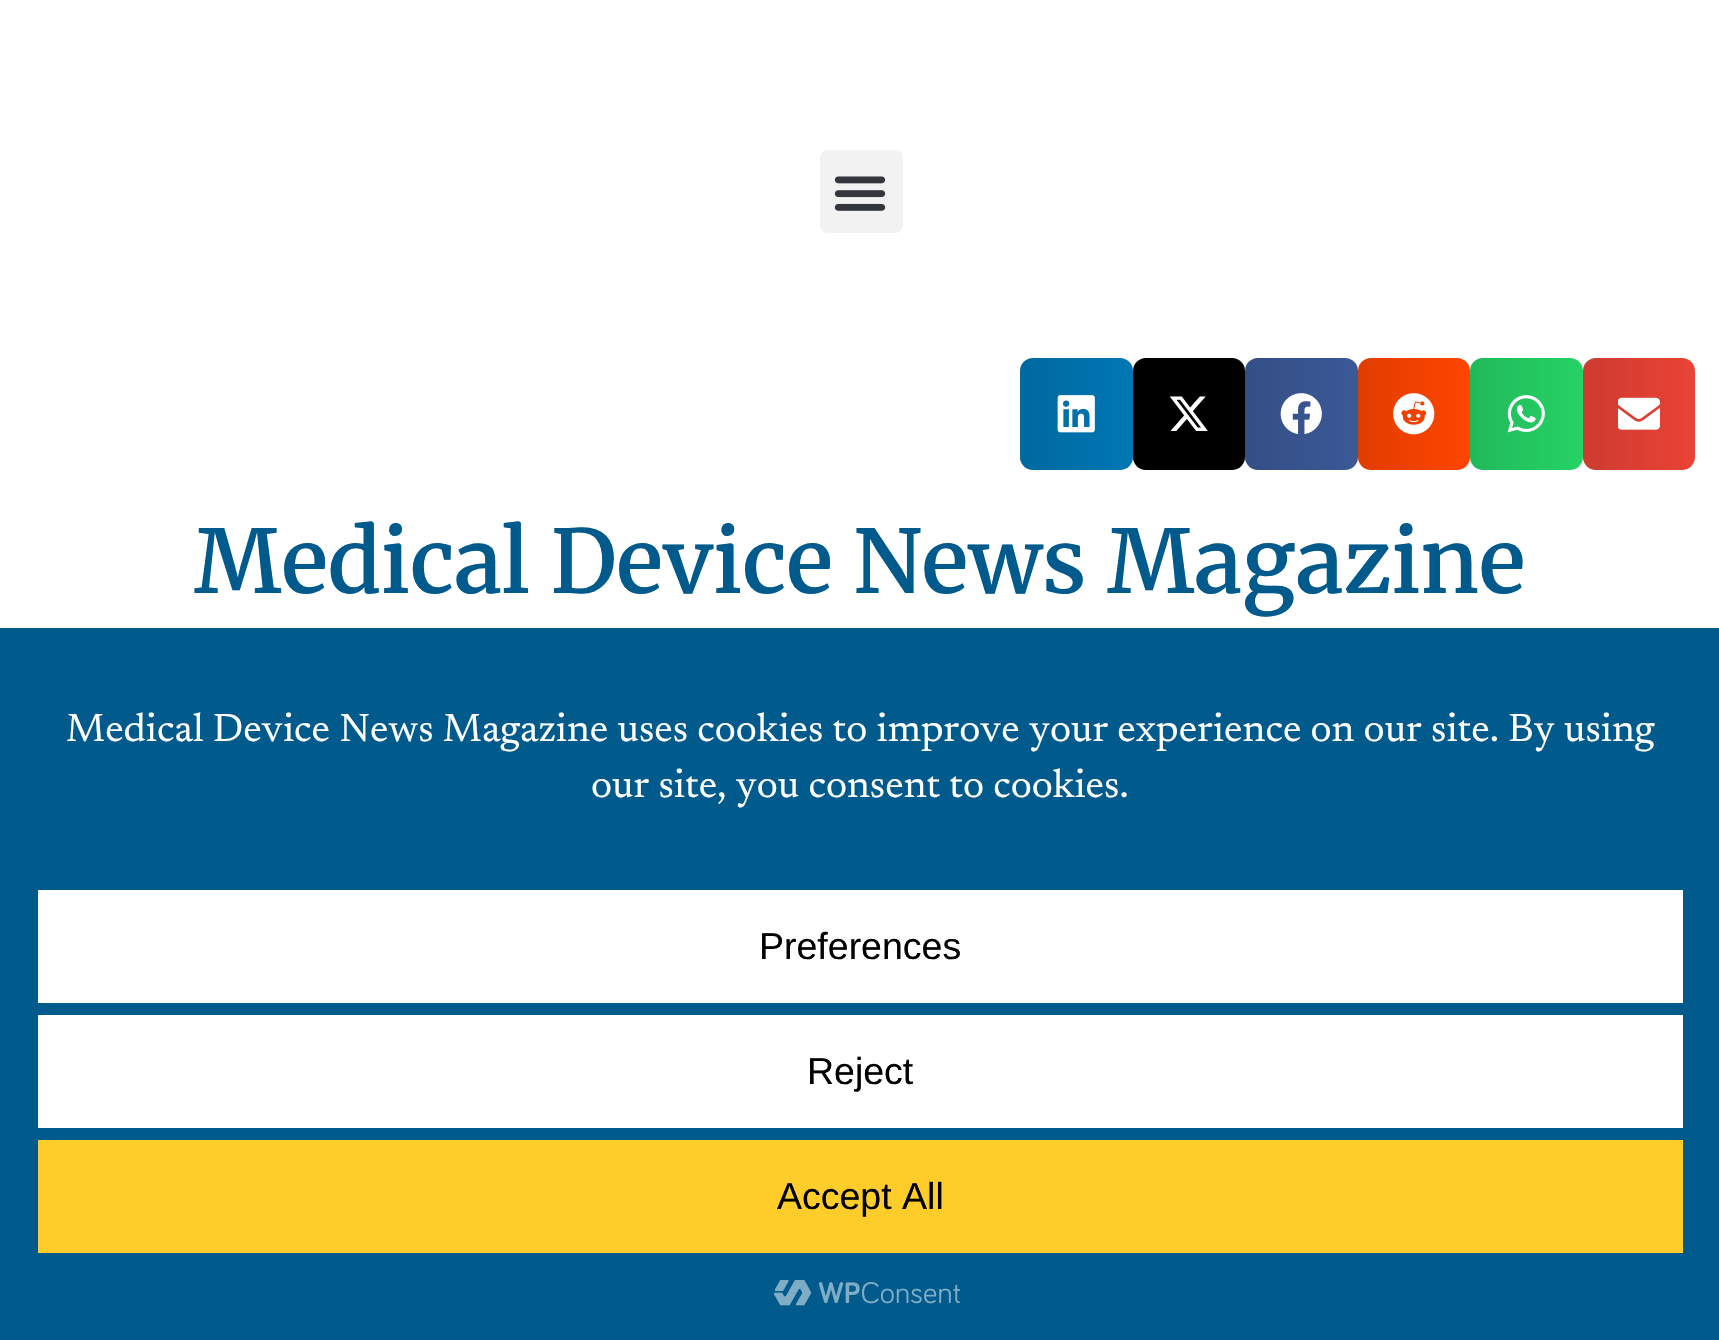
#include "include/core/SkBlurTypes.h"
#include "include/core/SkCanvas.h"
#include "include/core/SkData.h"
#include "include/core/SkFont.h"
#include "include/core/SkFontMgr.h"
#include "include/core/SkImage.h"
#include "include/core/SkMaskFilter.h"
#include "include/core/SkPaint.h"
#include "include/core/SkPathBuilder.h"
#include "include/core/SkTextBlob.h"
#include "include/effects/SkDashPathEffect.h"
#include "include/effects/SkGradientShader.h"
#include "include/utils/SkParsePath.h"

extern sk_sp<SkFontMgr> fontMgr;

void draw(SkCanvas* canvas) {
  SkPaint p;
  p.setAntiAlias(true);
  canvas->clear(SK_ColorWHITE);
  p.setColor(SkColorSetRGB(242, 242, 242));
  canvas->drawRoundRect(SkRect::MakeLTRB(820, 150, 903, 233), 8, 8, p);
  canvas->drawImageRect(SkImages::DeferredFromEncodedData(SkData::MakeFromFileName("images/1.png")), SkRect::MakeLTRB(834, 176, 886, 211), SkSamplingOptions());
  p.setColor(SkColorSetRGB(0, 119, 181));
  canvas->drawRoundRect(SkRect::MakeLTRB(1020, 358, 1133, 470), 13, 13, p);
  {
    const SkColor colors[] = {SkColorSetARGB(31, 0, 0, 0), SkColorSetARGB(0, 0, 0, 0)};
    const float stops[] = {0, 1};
    const SkPoint ends[] = {{1020, 414}, {1133, 414}};
    p.setShader(SkGradientShader::MakeLinear(ends, colors, stops, 2, SkTileMode::kClamp));
    p.setAlpha(255);
  }
  canvas->drawRoundRect(SkRect::MakeLTRB(1020, 358, 1133, 470), 13, 13, p);
  canvas->drawImageRect(SkImages::DeferredFromEncodedData(SkData::MakeFromFileName("images/2.png")), SkRect::MakeLTRB(1057, 395, 1095, 433), SkSamplingOptions());
  p.setShader(nullptr);
  p.setColor(SK_ColorBLACK);
  canvas->drawRoundRect(SkRect::MakeLTRB(1133, 358, 1245, 470), 13, 13, p);
  {
    const SkColor colors[] = {SkColorSetARGB(31, 0, 0, 0), SkColorSetARGB(0, 0, 0, 0)};
    const float stops[] = {0, 1};
    const SkPoint ends[] = {{1133, 414}, {1245, 414}};
    p.setShader(SkGradientShader::MakeLinear(ends, colors, stops, 2, SkTileMode::kClamp));
    p.setAlpha(255);
  }
  canvas->drawRoundRect(SkRect::MakeLTRB(1133, 358, 1245, 470), 13, 13, p);
  canvas->drawImageRect(SkImages::DeferredFromEncodedData(SkData::MakeFromFileName("images/3.png")), SkRect::MakeLTRB(1169, 396, 1208, 431), SkSamplingOptions());
  p.setShader(nullptr);
  p.setColor(SkColorSetRGB(59, 89, 152));
  canvas->drawRoundRect(SkRect::MakeLTRB(1245, 358, 1358, 470), 13, 13, p);
  {
    const SkColor colors[] = {SkColorSetARGB(31, 0, 0, 0), SkColorSetARGB(0, 0, 0, 0)};
    const float stops[] = {0, 1};
    const SkPoint ends[] = {{1245, 414}, {1358, 414}};
    p.setShader(SkGradientShader::MakeLinear(ends, colors, stops, 2, SkTileMode::kClamp));
    p.setAlpha(255);
  }
  canvas->drawRoundRect(SkRect::MakeLTRB(1245, 358, 1358, 470), 13, 13, p);
  canvas->drawImageRect(SkImages::DeferredFromEncodedData(SkData::MakeFromFileName("images/4.png")), SkRect::MakeLTRB(1280, 393, 1322, 434), SkSamplingOptions());
  p.setShader(nullptr);
  p.setColor(SkColorSetRGB(255, 69, 0));
  canvas->drawRoundRect(SkRect::MakeLTRB(1358, 358, 1470, 470), 13, 13, p);
  {
    const SkColor colors[] = {SkColorSetARGB(31, 0, 0, 0), SkColorSetARGB(0, 0, 0, 0)};
    const float stops[] = {0, 1};
    const SkPoint ends[] = {{1358, 414}, {1470, 414}};
    p.setShader(SkGradientShader::MakeLinear(ends, colors, stops, 2, SkTileMode::kClamp));
    p.setAlpha(255);
  }
  canvas->drawRoundRect(SkRect::MakeLTRB(1358, 358, 1470, 470), 13, 13, p);
  canvas->drawImageRect(SkImages::DeferredFromEncodedData(SkData::MakeFromFileName("images/5.png")), SkRect::MakeLTRB(1393, 393, 1435, 435), SkSamplingOptions());
  p.setShader(nullptr);
  p.setColor(SkColorSetRGB(37, 211, 102));
  canvas->drawRoundRect(SkRect::MakeLTRB(1470, 358, 1583, 470), 13, 13, p);
  {
    const SkColor colors[] = {SkColorSetARGB(31, 0, 0, 0), SkColorSetARGB(0, 0, 0, 0)};
    const float stops[] = {0, 1};
    const SkPoint ends[] = {{1470, 414}, {1583, 414}};
    p.setShader(SkGradientShader::MakeLinear(ends, colors, stops, 2, SkTileMode::kClamp));
    p.setAlpha(255);
  }
  canvas->drawRoundRect(SkRect::MakeLTRB(1470, 358, 1583, 470), 13, 13, p);
  canvas->drawImageRect(SkImages::DeferredFromEncodedData(SkData::MakeFromFileName("images/6.png")), SkRect::MakeLTRB(1507, 395, 1545, 433), SkSamplingOptions());
  p.setShader(nullptr);
  p.setColor(SkColorSetRGB(234, 67, 53));
  canvas->drawRoundRect(SkRect::MakeLTRB(1583, 358, 1695, 470), 13, 13, p);
  {
    const SkColor colors[] = {SkColorSetARGB(31, 0, 0, 0), SkColorSetARGB(0, 0, 0, 0)};
    const float stops[] = {0, 1};
    const SkPoint ends[] = {{1583, 414}, {1695, 414}};
    p.setShader(SkGradientShader::MakeLinear(ends, colors, stops, 2, SkTileMode::kClamp));
    p.setAlpha(255);
  }
  canvas->drawRoundRect(SkRect::MakeLTRB(1583, 358, 1695, 470), 13, 13, p);
  canvas->drawImageRect(SkImages::DeferredFromEncodedData(SkData::MakeFromFileName("images/7.png")), SkRect::MakeLTRB(1618, 397, 1660, 430), SkSamplingOptions());
  p.setShader(nullptr);
  p.setColor(SkColorSetRGB(0, 90, 140));
  canvas->drawRect(SkRect::MakeLTRB(0, 628, 1719, 1340), p);
  p.setColor(SK_ColorWHITE);
  canvas->drawRect(SkRect::MakeLTRB(38, 890, 1683, 1003), p);
  canvas->drawRect(SkRect::MakeLTRB(38, 1015, 1683, 1128), p);
  p.setColor(SkColorSetRGB(255, 205, 42));
  canvas->drawRect(SkRect::MakeLTRB(38, 1140, 1683, 1253), p);
  canvas->drawImageRect(SkImages::DeferredFromEncodedData(SkData::MakeFromFileName("images/8.png")), SkRect::MakeLTRB(774, 1279, 960, 1306), SkSamplingOptions());
  SkFont font1(fontMgr->matchFamilyStyle("Merriweather", SkFontStyle(600, SkFontStyle::kNormal_Width, SkFontStyle::kUpright_Slant)), 87.5f);
  font1.setSubpixel(true);
  p.setColor(SkColorSetRGB(0, 90, 140));
  canvas->drawString("Medical Device News Magazine", 194, 593, font1, p);
  SkFont font2(fontMgr->matchFamilyStyle("Newsreader", SkFontStyle::Normal()), 40);
  font2.setSubpixel(true);
  p.setColor(SK_ColorWHITE);
  canvas->drawString("Medical Device News Magazine uses cookies to improve your experience on our site. By using", 66, 741, font2, p);
  canvas->drawString("our site, you consent to cookies.", 591, 797, font2, p);
  SkFont font3(fontMgr->matchFamilyStyle("Liberation Sans", SkFontStyle::Normal()), 37.5f);
  font3.setSubpixel(true);
  p.setColor(SK_ColorBLACK);
  canvas->drawString("Preferences", 759, 959, font3, p);
  canvas->drawString("Reject", 807, 1084, font3, p);
  canvas->drawString("Accept All", 777, 1209, font3, p);
}
